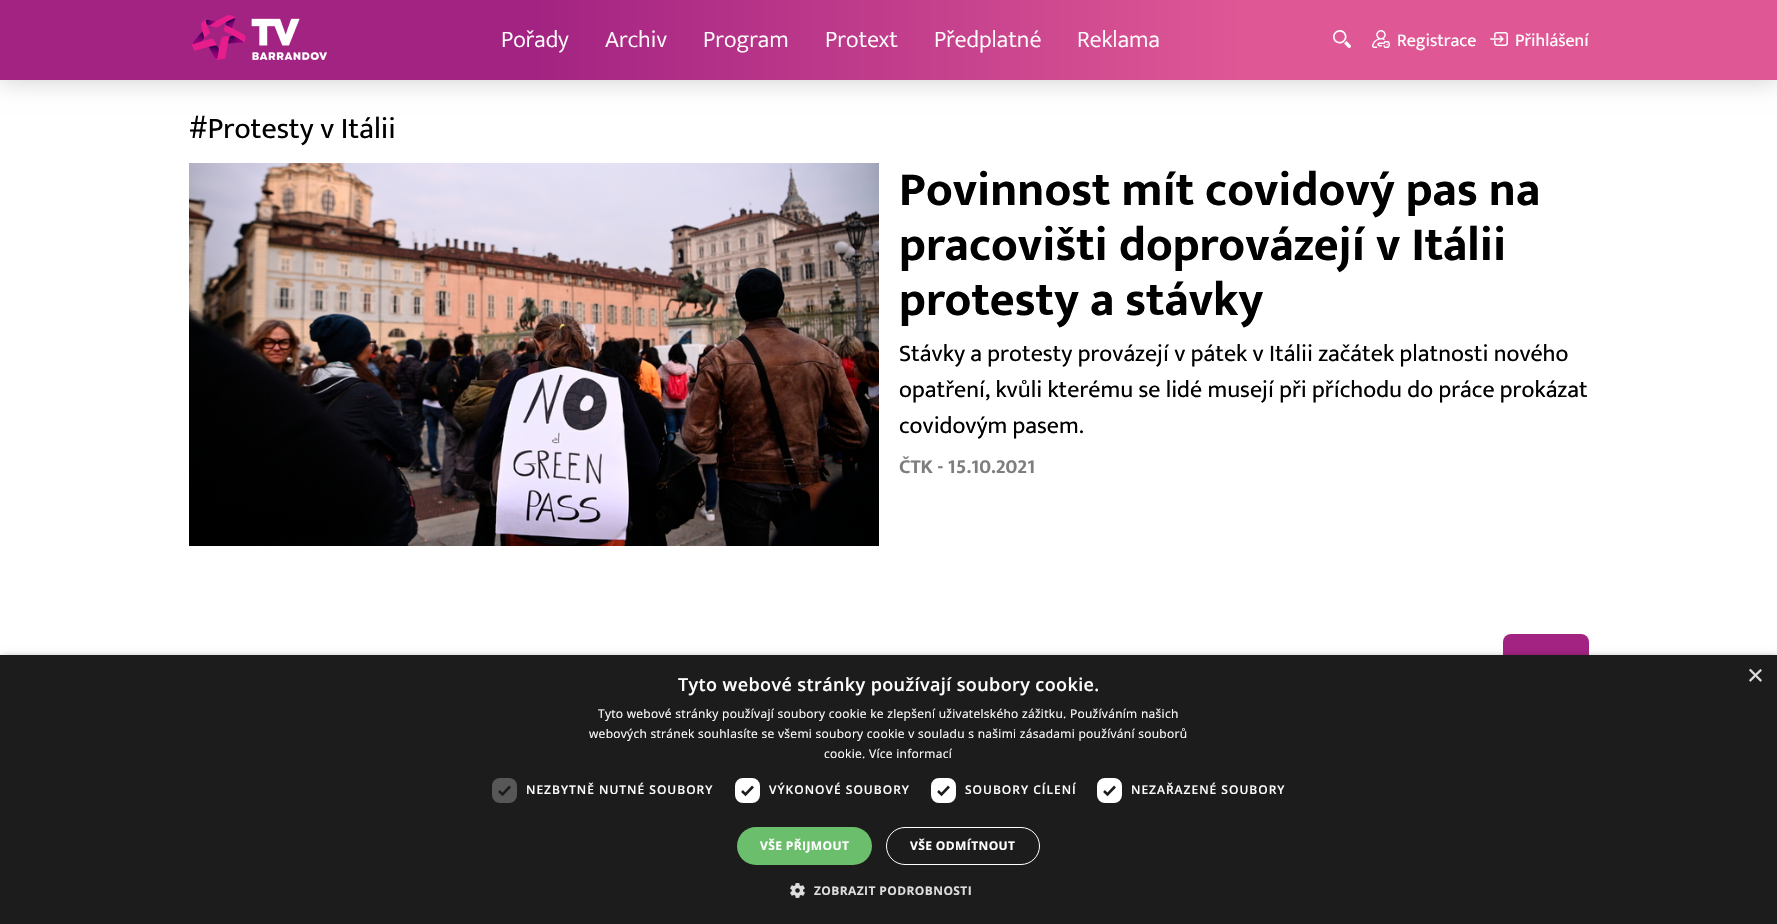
#include "include/core/SkBlurTypes.h"
#include "include/core/SkCanvas.h"
#include "include/core/SkData.h"
#include "include/core/SkFont.h"
#include "include/core/SkFontMgr.h"
#include "include/core/SkImage.h"
#include "include/core/SkMaskFilter.h"
#include "include/core/SkPaint.h"
#include "include/core/SkPathBuilder.h"
#include "include/core/SkTextBlob.h"
#include "include/effects/SkDashPathEffect.h"
#include "include/effects/SkGradientShader.h"
#include "include/utils/SkParsePath.h"

extern sk_sp<SkFontMgr> fontMgr;

void draw(SkCanvas* canvas) {
  SkPaint p;
  p.setAntiAlias(true);
  auto spacedText = [&](const char* s, float x, float y, const SkFont& font, const SkPaint& ink, float letter, float word) {
    std::vector<SkGlyphID> glyphs(font.countText(s, strlen(s), SkTextEncoding::kUTF8));
    std::vector<float> xs(glyphs.size());
    font.textToGlyphs(s, strlen(s), SkTextEncoding::kUTF8, glyphs);
    font.getXPos(glyphs, xs, x);
    float extra = 0;
    for (size_t i = 0; i < glyphs.size(); i++) {
      xs[i] += extra;
      extra += letter + word * (glyphs[i] == font.unicharToGlyph(' '));
    }
    canvas->drawTextBlob(SkTextBlob::MakeFromPosHGlyphs(glyphs, xs, y, font), 0, 0, ink);
  };
  canvas->clear(SK_ColorWHITE);
  p.setColor(SkColorSetARGB(51, 0, 0, 0));
  p.setMaskFilter(SkMaskFilter::MakeBlur(kNormal_SkBlurStyle, 12));
  canvas->drawRect(SkRect::MakeLTRB(0, 0, 1777, 80), p);
  p.setMaskFilter(nullptr);
  {
    const SkColor colors[] = {SkColorSetRGB(163, 35, 130), SkColorSetRGB(223, 87, 149)};
    const float stops[] = {0.3f, 0.7f};
    const SkPoint ends[] = {{0, 40}, {1777, 40}};
    p.setShader(SkGradientShader::MakeLinear(ends, colors, stops, 2, SkTileMode::kClamp));
    p.setAlpha(255);
  }
  canvas->drawRect(SkRect::MakeLTRB(0, 0, 1777, 80), p);
  canvas->drawImageRect(SkImages::DeferredFromEncodedData(SkData::MakeFromFileName("images/1.png")), SkRect::MakeLTRB(192, 15, 327, 60), SkSamplingOptions());
  canvas->drawImageRect(SkImages::DeferredFromEncodedData(SkData::MakeFromFileName("images/2.png")), SkRect::MakeLTRB(1333, 30, 1351, 48), SkSamplingOptions());
  canvas->drawImageRect(SkImages::DeferredFromEncodedData(SkData::MakeFromFileName("images/3.png")), SkRect::MakeLTRB(1372, 30, 1390, 48), SkSamplingOptions());
  canvas->drawImageRect(SkImages::DeferredFromEncodedData(SkData::MakeFromFileName("images/4.png")), SkRect::MakeLTRB(1490, 32, 1508, 46), SkSamplingOptions());
  canvas->drawImageRect(SkImages::DeferredFromEncodedData(SkData::MakeFromFileName("images/5.png")), SkRect::MakeLTRB(189, 163, 879, 546), SkSamplingOptions());
  p.setShader(nullptr);
  p.setColor(SkColorSetRGB(163, 35, 130));
  canvas->drawRoundRect(SkRect::MakeLTRB(1503, 634, 1589, 680), 8, 8, p);
  p.setColor(SkColorSetARGB(89, 0, 0, 0));
  p.setMaskFilter(SkMaskFilter::MakeBlur(kNormal_SkBlurStyle, 4));
  canvas->drawRect(SkRect::MakeLTRB(1, 657, 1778, 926), p);
  p.setMaskFilter(nullptr);
  p.setColor(SkColorSetRGB(28, 28, 28));
  canvas->drawRect(SkRect::MakeLTRB(0, 655, 1777, 924), p);
  p.setColor(SkColorSetRGB(87, 87, 87));
  canvas->drawRoundRect(SkRect::MakeLTRB(492, 778, 517, 803), 8, 8, p);
  p.setStyle(SkPaint::kStroke_Style);
  p.setStrokeWidth(2.6f);
  p.setColor(SkColorSetRGB(28, 28, 28));
  canvas->drawPath(SkPathBuilder().moveTo(499, 791).lineTo(502.5f, 794.5f).lineTo(510, 786.5f).detach(), p);
  p.setStyle(SkPaint::kFill_Style);
  p.setColor(SK_ColorWHITE);
  canvas->drawRoundRect(SkRect::MakeLTRB(736, 779, 759, 802), 7, 7, p);
  p.setStyle(SkPaint::kStroke_Style);
  p.setStrokeWidth(2);
  canvas->drawRoundRect(SkRect::MakeLTRB(736, 779, 759, 802), 7, 7, p);
  p.setStrokeWidth(2.6f);
  p.setColor(SkColorSetRGB(28, 28, 28));
  canvas->drawPath(SkPathBuilder().moveTo(742, 791).lineTo(745.5f, 794.5f).lineTo(753, 786.5f).detach(), p);
  p.setStyle(SkPaint::kFill_Style);
  p.setColor(SK_ColorWHITE);
  canvas->drawRoundRect(SkRect::MakeLTRB(932, 779, 955, 802), 7, 7, p);
  p.setStyle(SkPaint::kStroke_Style);
  p.setStrokeWidth(2);
  canvas->drawRoundRect(SkRect::MakeLTRB(932, 779, 955, 802), 7, 7, p);
  p.setStrokeWidth(2.6f);
  p.setColor(SkColorSetRGB(28, 28, 28));
  canvas->drawPath(SkPathBuilder().moveTo(938, 791).lineTo(941.5f, 794.5f).lineTo(949, 786.5f).detach(), p);
  p.setStyle(SkPaint::kFill_Style);
  p.setColor(SK_ColorWHITE);
  canvas->drawRoundRect(SkRect::MakeLTRB(1098, 779, 1121, 802), 7, 7, p);
  p.setStyle(SkPaint::kStroke_Style);
  p.setStrokeWidth(2);
  canvas->drawRoundRect(SkRect::MakeLTRB(1098, 779, 1121, 802), 7, 7, p);
  p.setStrokeWidth(2.6f);
  p.setColor(SkColorSetRGB(28, 28, 28));
  canvas->drawPath(SkPathBuilder().moveTo(1104, 791).lineTo(1107.5f, 794.5f).lineTo(1115, 786.5f).detach(), p);
  p.setStyle(SkPaint::kFill_Style);
  p.setColor(SkColorSetRGB(107, 190, 107));
  canvas->drawRoundRect(SkRect::MakeLTRB(737, 827, 872, 865), 19, 19, p);
  p.setStyle(SkPaint::kStroke_Style);
  p.setStrokeWidth(1);
  p.setColor(SK_ColorWHITE);
  canvas->drawRoundRect(SkRect::MakeLTRB(886.5f, 827.5f, 1039.5f, 864.5f), 18.5f, 18.5f, p);
  canvas->drawImageRect(SkImages::DeferredFromEncodedData(SkData::MakeFromFileName("images/6.png")), SkRect::MakeLTRB(790, 883, 805, 898), SkSamplingOptions());
  SkFont font1(fontMgr->matchFamilyStyle("Mukta", SkFontStyle(300, SkFontStyle::kNormal_Width, SkFontStyle::kUpright_Slant)), 24);
  font1.setSubpixel(true);
  p.setStyle(SkPaint::kFill_Style);
  canvas->drawString("Pořady", 501, 47, font1, p);
  canvas->drawString("Archiv", 605, 47, font1, p);
  canvas->drawString("Program", 703, 47, font1, p);
  canvas->drawString("Protext", 825, 47, font1, p);
  canvas->drawString("Předplatné", 934, 47, font1, p);
  canvas->drawString("Reklama", 1077, 47, font1, p);
  SkFont font2(fontMgr->matchFamilyStyle("Mukta", SkFontStyle::Normal()), 18);
  font2.setSubpixel(true);
  canvas->drawString("Registrace", 1397, 46, font2, p);
  canvas->drawString("Přihlášení", 1515, 46, font2, p);
  SkFont font3(fontMgr->matchFamilyStyle("Mukta", SkFontStyle::Normal()), 30);
  font3.setSubpixel(true);
  p.setColor(SK_ColorBLACK);
  canvas->drawString("#Protesty v Itálii", 189, 138, font3, p);
  SkFont font4(fontMgr->matchFamilyStyle("Mukta", SkFontStyle::Bold()), 48);
  font4.setSubpixel(true);
  canvas->drawString("Povinnost mít covidový pas na", 899, 205, font4, p);
  canvas->drawString("pracovišti doprovázejí v Itálii", 899, 260, font4, p);
  canvas->drawString("protesty a stávky", 899, 315, font4, p);
  SkFont font5(fontMgr->matchFamilyStyle("Mukta", SkFontStyle::Normal()), 24);
  font5.setSubpixel(true);
  canvas->drawString("Stávky a protesty provázejí v pátek v Itálii začátek platnosti nového", 899, 361, font5, p);
  canvas->drawString("opatření, kvůli kterému se lidé musejí při příchodu do práce prokázat", 899, 397, font5, p);
  canvas->drawString("covidovým pasem.", 899, 433, font5, p);
  SkFont font6(fontMgr->matchFamilyStyle("Mukta", SkFontStyle::Bold()), 20);
  font6.setSubpixel(true);
  p.setColor(SkColorSetRGB(127, 126, 127));
  canvas->drawString("ČTK - 15.10.2021", 899, 473, font6, p);
  SkFont font7(fontMgr->matchFamilyStyle("Liberation Sans", SkFontStyle::Normal()), 29);
  font7.setSubpixel(true);
  p.setColor(SkColorSetRGB(221, 221, 221));
  canvas->drawString("×", 1747, 685, font7, p);
  SkFont font8(fontMgr->matchFamilyStyle("Open Sans", SkFontStyle(600, SkFontStyle::kNormal_Width, SkFontStyle::kUpright_Slant)), 18);
  font8.setSubpixel(true);
  p.setColor(SK_ColorWHITE);
  spacedText("Tyto webové stránky používají soubory cookie.", 678, 691, font8, p, 0.4f, 0);
  SkFont font9(fontMgr->matchFamilyStyle("Open Sans", SkFontStyle::Normal()), 12);
  font9.setSubpixel(true);
  spacedText("Tyto webové stránky používají soubory cookie ke zlepšení uživatelského zážitku. Používáním našich", 598, 718, font9, p, 0.3f, 0);
  spacedText("webových stránek souhlasíte se všemi soubory cookie v souladu s našimi zásadami používání souborů", 589, 738, font9, p, 0.3f, 0);
  spacedText("cookie. Více informací", 824, 758, font9, p, 0.3f, 0);
  SkFont font10(fontMgr->matchFamilyStyle("Open Sans", SkFontStyle(600, SkFontStyle::kNormal_Width, SkFontStyle::kUpright_Slant)), 12);
  font10.setSubpixel(true);
  spacedText("NEZBYTNĚ NUTNÉ SOUBORY", 526, 794, font10, p, 1, 0);
  spacedText("VÝKONOVÉ SOUBORY", 769, 794, font10, p, 1, 0);
  spacedText("SOUBORY CÍLENÍ", 965, 794, font10, p, 1, 0);
  spacedText("NEZAŘAZENÉ SOUBORY", 1131, 794, font10, p, 1, 0);
  SkFont font11(fontMgr->matchFamilyStyle("Open Sans", SkFontStyle::Bold()), 12);
  font11.setSubpixel(true);
  spacedText("VŠE PŘIJMOUT", 760, 850, font11, p, 0.4f, 0);
  spacedText("VŠE ODMÍTNOUT", 910, 850, font11, p, 0.4f, 0);
  p.setColor(SkColorSetRGB(221, 221, 221));
  spacedText("ZOBRAZIT PODROBNOSTI", 814, 895, font11, p, 0.4f, 0);
}
